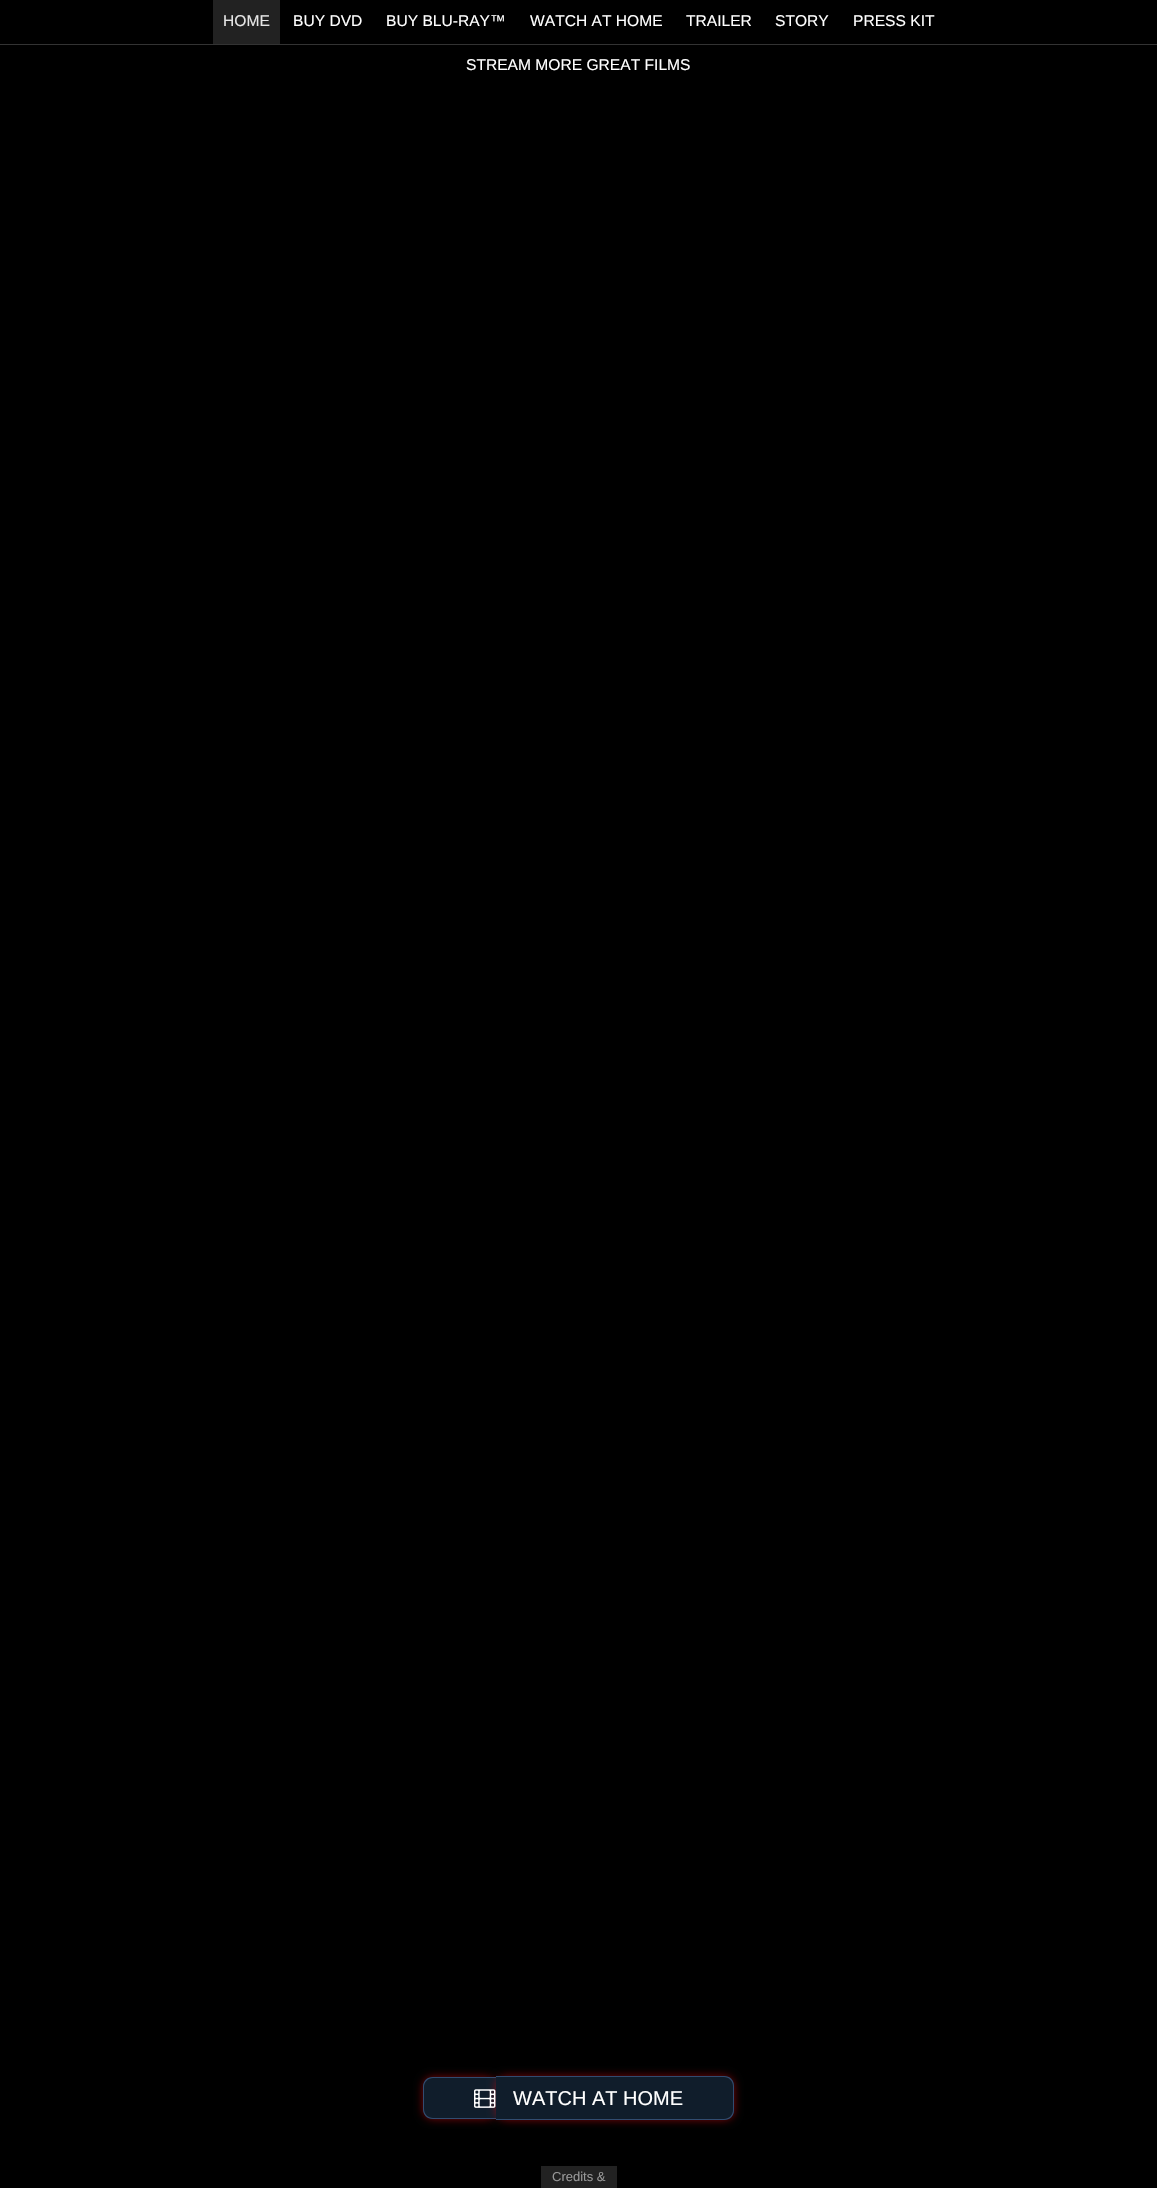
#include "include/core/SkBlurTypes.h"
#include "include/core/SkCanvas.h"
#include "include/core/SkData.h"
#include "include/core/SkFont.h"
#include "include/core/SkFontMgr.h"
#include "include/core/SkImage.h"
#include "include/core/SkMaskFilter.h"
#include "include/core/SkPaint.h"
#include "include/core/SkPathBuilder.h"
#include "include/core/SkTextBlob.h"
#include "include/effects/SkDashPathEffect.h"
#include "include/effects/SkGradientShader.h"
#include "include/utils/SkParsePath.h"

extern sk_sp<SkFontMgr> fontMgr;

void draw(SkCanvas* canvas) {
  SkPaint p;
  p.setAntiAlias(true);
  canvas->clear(SK_ColorBLACK);
  p.setColor(SkColorSetRGB(51, 51, 51));
  canvas->drawRect(SkRect::MakeLTRB(0, 44, 1157, 45), p);
  p.setColor(SkColorSetRGB(34, 34, 34));
  canvas->drawRect(SkRect::MakeLTRB(213, 0, 280, 44), p);
  p.setColor(SkColorSetARGB(153, 201, 10, 16));
  p.setMaskFilter(SkMaskFilter::MakeBlur(kNormal_SkBlurStyle, 4));
  canvas->drawRoundRect(SkRect::MakeLTRB(423, 2077, 496, 2119), 10, 10, p);
  p.setMaskFilter(nullptr);
  p.setColor(SkColorSetRGB(16, 29, 43));
  canvas->drawPath(SkPathBuilder().moveTo(433, 2077).lineTo(496, 2077).lineTo(496, 2119).lineTo(433, 2119).cubicTo(427.5f, 2119, 423, 2114.5f, 423, 2109).lineTo(423, 2087).cubicTo(423, 2081.5f, 427.5f, 2077, 433, 2077).close().detach(), p);
  p.setColor(SkColorSetRGB(49, 76, 112));
  canvas->drawPath(SkPathBuilder(SkPathFillType::kEvenOdd).moveTo(433, 2077).lineTo(496, 2077).lineTo(496, 2119).lineTo(433, 2119).cubicTo(427, 2119, 423, 2115, 423, 2109).lineTo(423, 2087).cubicTo(423, 2081, 427, 2077, 433, 2077).close().moveTo(433, 2078).lineTo(496, 2078).lineTo(496, 2118).lineTo(433, 2118).cubicTo(428, 2118, 424, 2114, 424, 2109).lineTo(424, 2087).cubicTo(424, 2082, 428, 2078, 433, 2078).close().detach(), p);
  p.setColor(SkColorSetARGB(153, 201, 10, 16));
  p.setMaskFilter(SkMaskFilter::MakeBlur(kNormal_SkBlurStyle, 4));
  canvas->drawRoundRect(SkRect::MakeLTRB(496, 2076, 734, 2120), 10, 10, p);
  p.setMaskFilter(nullptr);
  p.setColor(SkColorSetRGB(16, 29, 43));
  canvas->drawPath(SkPathBuilder().moveTo(496, 2076).lineTo(724, 2076).cubicTo(729.5f, 2076, 734, 2080.5f, 734, 2086).lineTo(734, 2110).cubicTo(734, 2115.5f, 729.5f, 2120, 724, 2120).lineTo(496, 2120).close().detach(), p);
  p.setColor(SkColorSetRGB(49, 76, 112));
  canvas->drawPath(SkPathBuilder(SkPathFillType::kEvenOdd).moveTo(496, 2076).lineTo(724, 2076).cubicTo(730, 2076, 734, 2080, 734, 2086).lineTo(734, 2110).cubicTo(734, 2116, 730, 2120, 724, 2120).lineTo(496, 2120).close().moveTo(496, 2077).lineTo(724, 2077).cubicTo(729, 2077, 733, 2081, 733, 2086).lineTo(733, 2110).cubicTo(733, 2115, 729, 2119, 724, 2119).lineTo(496, 2119).close().detach(), p);
  canvas->drawImageRect(SkImages::DeferredFromEncodedData(SkData::MakeFromFileName("images/1.png")), SkRect::MakeLTRB(474, 2089, 496, 2108), SkSamplingOptions());
  p.setColor(SkColorSetRGB(34, 34, 34));
  canvas->drawRect(SkRect::MakeLTRB(541, 2166, 617, 2188), p);
  SkFont font1(fontMgr->matchFamilyStyle("Liberation Sans", SkFontStyle::Normal()), 15.6f);
  font1.setSubpixel(true);
  p.setColor(SkColorSetRGB(230, 230, 230));
  canvas->drawString("HOME", 223, 26, font1, p);
  p.setColor(SK_ColorWHITE);
  canvas->drawString("BUY DVD", 293, 26, font1, p);
  canvas->drawString("BUY BLU-RAY™", 386, 26, font1, p);
  canvas->drawString("WATCH AT HOME", 530, 26, font1, p);
  canvas->drawString("TRAILER", 686, 26, font1, p);
  canvas->drawString("STORY", 775, 26, font1, p);
  canvas->drawString("PRESS KIT", 853, 26, font1, p);
  canvas->drawString("STREAM MORE GREAT FILMS", 466, 70, font1, p);
  SkFont font2(fontMgr->matchFamilyStyle("Liberation Sans", SkFontStyle::Normal()), 20);
  font2.setSubpixel(true);
  canvas->drawString("WATCH AT HOME", 513, 2105, font2, p);
  SkFont font3(fontMgr->matchFamilyStyle("Liberation Sans", SkFontStyle::Normal()), 13);
  font3.setSubpixel(true);
  p.setColor(SkColorSetRGB(153, 153, 153));
  canvas->drawString("Credits &", 552, 2181, font3, p);
}
